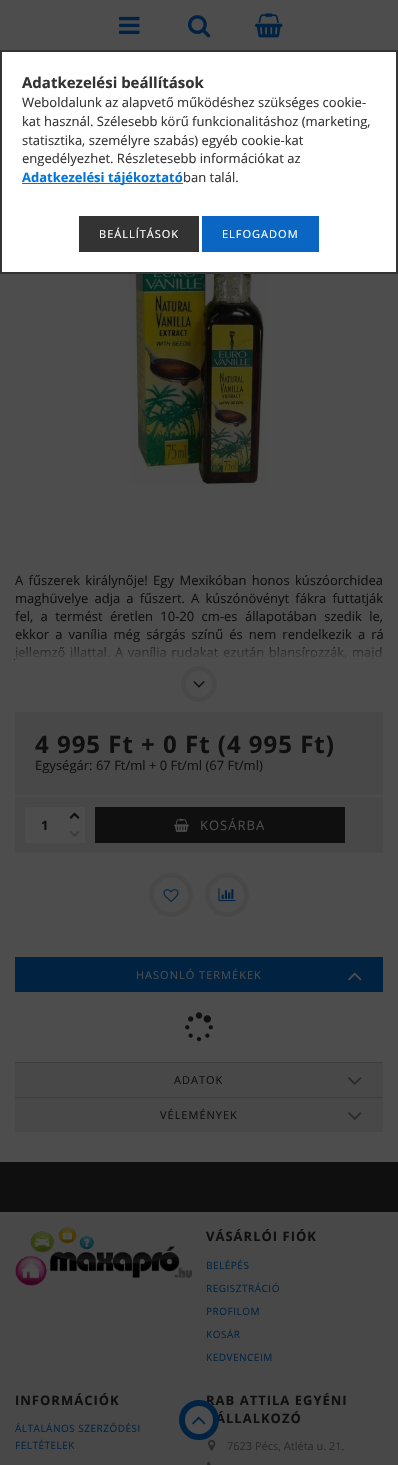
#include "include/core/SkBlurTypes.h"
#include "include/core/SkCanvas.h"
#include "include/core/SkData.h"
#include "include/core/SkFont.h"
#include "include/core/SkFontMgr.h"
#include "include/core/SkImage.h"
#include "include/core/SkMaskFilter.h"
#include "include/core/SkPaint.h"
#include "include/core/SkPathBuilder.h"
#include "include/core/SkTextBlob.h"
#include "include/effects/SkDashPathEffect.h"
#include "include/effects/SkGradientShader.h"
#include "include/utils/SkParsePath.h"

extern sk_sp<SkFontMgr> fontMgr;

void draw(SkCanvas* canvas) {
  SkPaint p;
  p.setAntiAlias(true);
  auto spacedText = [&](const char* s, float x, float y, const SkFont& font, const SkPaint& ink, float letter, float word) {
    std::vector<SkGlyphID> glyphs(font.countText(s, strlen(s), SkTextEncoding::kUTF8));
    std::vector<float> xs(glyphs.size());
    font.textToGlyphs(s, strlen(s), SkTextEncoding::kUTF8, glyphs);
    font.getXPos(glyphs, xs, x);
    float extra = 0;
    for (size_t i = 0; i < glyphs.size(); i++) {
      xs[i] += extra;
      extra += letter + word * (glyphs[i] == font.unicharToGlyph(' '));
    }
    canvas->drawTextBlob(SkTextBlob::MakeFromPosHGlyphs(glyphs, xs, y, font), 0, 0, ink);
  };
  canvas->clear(SkColorSetRGB(77, 77, 77));
  p.setColor(SK_ColorWHITE);
  canvas->drawRect(SkRect::MakeLTRB(1, 51, 397, 273), p);
  p.setStyle(SkPaint::kStroke_Style);
  p.setStrokeWidth(2);
  p.setColor(SkColorSetRGB(51, 51, 51));
  canvas->drawRect(SkRect::MakeLTRB(1, 51, 397, 273), p);
  p.setStyle(SkPaint::kFill_Style);
  p.setColor(SkColorSetRGB(2, 117, 216));
  canvas->drawRect(SkRect::MakeLTRB(22, 183, 183, 184), p);
  p.setColor(SkColorSetRGB(51, 51, 51));
  canvas->drawRect(SkRect::MakeLTRB(79, 216, 199, 252), p);
  p.setColor(SkColorSetRGB(10, 102, 194));
  canvas->drawRect(SkRect::MakeLTRB(202, 216, 319, 252), p);
  canvas->drawImageRect(SkImages::DeferredFromEncodedData(SkData::MakeFromFileName("images/1.png")), SkRect::MakeLTRB(119, 16, 140, 34), SkSamplingOptions());
  canvas->drawImageRect(SkImages::DeferredFromEncodedData(SkData::MakeFromFileName("images/2.png")), SkRect::MakeLTRB(188, 15, 211, 38), SkSamplingOptions());
  canvas->drawImageRect(SkImages::DeferredFromEncodedData(SkData::MakeFromFileName("images/3.png")), SkRect::MakeLTRB(255, 13, 283, 38), SkSamplingOptions());
  canvas->drawImageRect(SkImages::DeferredFromEncodedData(SkData::MakeFromFileName("images/4.png")), SkRect::MakeLTRB(129, 274, 267, 485), SkSamplingOptions());
  p.setStyle(SkPaint::kStroke_Style);
  p.setStrokeWidth(5);
  p.setColor(SkColorSetRGB(72, 72, 72));
  canvas->drawCircle(199, 684, 15.5f, p);
  canvas->drawImageRect(SkImages::DeferredFromEncodedData(SkData::MakeFromFileName("images/5.png")), SkRect::MakeLTRB(193, 681, 205, 688), SkSamplingOptions());
  p.setStyle(SkPaint::kFill_Style);
  canvas->drawRect(SkRect::MakeLTRB(15, 712, 383, 795), p);
  canvas->drawRect(SkRect::MakeLTRB(15, 797, 383, 853), p);
  p.setColor(SkColorSetRGB(77, 77, 77));
  canvas->drawRect(SkRect::MakeLTRB(25, 807, 65, 843), p);
  canvas->drawRect(SkRect::MakeLTRB(65, 807, 85, 843), p);
  canvas->drawImageRect(SkImages::DeferredFromEncodedData(SkData::MakeFromFileName("images/6.png")), SkRect::MakeLTRB(69, 812, 80, 819), SkSamplingOptions());
  canvas->drawImageRect(SkImages::DeferredFromEncodedData(SkData::MakeFromFileName("images/7.png")), SkRect::MakeLTRB(69, 831, 80, 838), SkSamplingOptions());
  p.setColor(SkColorSetRGB(15, 15, 15));
  canvas->drawRect(SkRect::MakeLTRB(95, 807, 345, 843), p);
  canvas->drawImageRect(SkImages::DeferredFromEncodedData(SkData::MakeFromFileName("images/8.png")), SkRect::MakeLTRB(174, 818, 189, 832), SkSamplingOptions());
  p.setStyle(SkPaint::kStroke_Style);
  p.setColor(SkColorSetRGB(72, 72, 72));
  canvas->drawCircle(171, 895, 19.5f, p);
  canvas->drawImageRect(SkImages::DeferredFromEncodedData(SkData::MakeFromFileName("images/9.png")), SkRect::MakeLTRB(163, 889, 179, 902), SkSamplingOptions());
  canvas->drawCircle(227, 895, 19.5f, p);
  canvas->drawImageRect(SkImages::DeferredFromEncodedData(SkData::MakeFromFileName("images/10.png")), SkRect::MakeLTRB(218, 888, 236, 902), SkSamplingOptions());
  p.setStyle(SkPaint::kFill_Style);
  p.setColor(SkColorSetRGB(1, 35, 65));
  canvas->drawRect(SkRect::MakeLTRB(15, 957, 383, 992), p);
  canvas->drawImageRect(SkImages::DeferredFromEncodedData(SkData::MakeFromFileName("images/11.png")), SkRect::MakeLTRB(348, 972, 362, 981), SkSamplingOptions());
  canvas->drawImageRect(SkImages::DeferredFromEncodedData(SkData::MakeFromFileName("images/12.png")), SkRect::MakeLTRB(185, 1012, 213, 1042), SkSamplingOptions());
  p.setColor(SkColorSetRGB(72, 72, 72));
  canvas->drawRect(SkRect::MakeLTRB(15, 1063, 383, 1097), p);
  p.setColor(SkColorSetRGB(61, 61, 61));
  canvas->drawRect(SkRect::MakeLTRB(15, 1062, 383, 1063), p);
  canvas->drawImageRect(SkImages::DeferredFromEncodedData(SkData::MakeFromFileName("images/13.png")), SkRect::MakeLTRB(348, 1077, 362, 1085), SkSamplingOptions());
  p.setColor(SkColorSetRGB(72, 72, 72));
  canvas->drawRect(SkRect::MakeLTRB(15, 1098, 383, 1132), p);
  p.setColor(SkColorSetRGB(61, 61, 61));
  canvas->drawRect(SkRect::MakeLTRB(15, 1097, 383, 1098), p);
  canvas->drawImageRect(SkImages::DeferredFromEncodedData(SkData::MakeFromFileName("images/13.png")), SkRect::MakeLTRB(348, 1112, 362, 1120), SkSamplingOptions());
  p.setColor(SkColorSetRGB(15, 15, 15));
  canvas->drawRect(SkRect::MakeLTRB(0, 1162, 398, 1212), p);
  p.setColor(SkColorSetRGB(72, 72, 72));
  canvas->drawRect(SkRect::MakeLTRB(0, 1212, 398, 1465), p);
  canvas->drawImageRect(SkImages::DeferredFromEncodedData(SkData::MakeFromFileName("images/14.png")), SkRect::MakeLTRB(15, 1227, 192, 1286), SkSamplingOptions());
  canvas->drawImageRect(SkImages::DeferredFromEncodedData(SkData::MakeFromFileName("images/15.png")), SkRect::MakeLTRB(208, 1439, 216, 1451), SkSamplingOptions());
  canvas->drawImageRect(SkImages::DeferredFromEncodedData(SkData::MakeFromFileName("images/16.png")), SkRect::MakeLTRB(207, 1461, 211, 1465), SkSamplingOptions());
  SkFont font1(fontMgr->matchFamilyStyle("Open Sans", SkFontStyle::Bold()), 15);
  font1.setSubpixel(true);
  p.setColor(SkColorSetRGB(51, 51, 51));
  canvas->drawString("Adatkezelési beállítások", 22, 88, font1, p);
  SkFont font2(fontMgr->matchFamilyStyle("Open Sans", SkFontStyle::Normal()), 13);
  font2.setSubpixel(true);
  canvas->drawString("Weboldalunk az alapvető működéshez szükséges cookie-", 22, 107, font2, p);
  canvas->drawString("kat használ. Szélesebb körű funkcionalitáshoz (marketing,", 22, 126, font2, p);
  canvas->drawString("statisztika, személyre szabás) egyéb cookie-kat", 22, 145, font2, p);
  canvas->drawString("engedélyezhet. Részletesebb információkat az", 22, 163, font2, p);
  SkFont font3(fontMgr->matchFamilyStyle("Open Sans", SkFontStyle::Bold()), 13);
  font3.setSubpixel(true);
  p.setColor(SkColorSetRGB(2, 117, 216));
  canvas->drawString("Adatkezelési tájékoztató", 22, 182, font3, p);
  p.setColor(SkColorSetRGB(51, 51, 51));
  canvas->drawString("ban talál.", 183, 182, font2, p);
  SkFont font4(fontMgr->matchFamilyStyle("Open Sans", SkFontStyle::Normal()), 11);
  font4.setSubpixel(true);
  p.setColor(SK_ColorWHITE);
  spacedText("BEÁLLÍTÁSOK", 99, 238, font4, p, 1, 0);
  spacedText("ELFOGADOM", 222, 238, font4, p, 1, 0);
  p.setColor(SkColorSetRGB(15, 15, 15));
  spacedText("A fűszerek királynője! Egy Mexikóban honos kúszóorchidea", 15, 585, font2, p, 0, 2);
  spacedText("maghüvelye adja a fűszert. A kúszónövényt fákra futtatják", 15, 603, font2, p, 0, 2.75f);
  spacedText("fel, a termést éretlen 10-20 cm-es állapotában szedik le,", 15, 621, font2, p, 0, 4);
  spacedText("ekkor a vanília még sárgás színű és nem rendelkezik a rá", 15, 639, font2, p, 0, 2.75f);
  spacedText("jellemző illattal. A vanília rudakat ezután blansírozzák, majd", 15, 657, font2, p, 0, 1.25f);
  {
    const SkColor colors[] = {SkColorSetARGB(0, 77, 77, 77), SkColorSetRGB(77, 77, 77)};
    const float stops[] = {0, 1};
    const SkPoint ends[] = {{199, 643}, {199, 661}};
    p.setShader(SkGradientShader::MakeLinear(ends, colors, stops, 2, SkTileMode::kClamp));
    p.setAlpha(255);
  }
  canvas->drawRect(SkRect::MakeLTRB(15, 647, 382, 661), p);
  SkFont font5(fontMgr->matchFamilyStyle("Open Sans", SkFontStyle::Bold()), 24);
  font5.setSubpixel(true);
  p.setShader(nullptr);
  p.setColor(SkColorSetRGB(15, 15, 15));
  spacedText("4 995 Ft + 0 Ft (4 995 Ft)", 35, 753, font5, p, 1, 0);
  canvas->drawString("Egységár: 67 Ft/ml + 0 Ft/ml (67 Ft/ml)", 35, 770, font2, p);
  canvas->drawString("1", 41, 830, font3, p);
  p.setColor(SkColorSetRGB(77, 77, 77));
  spacedText("KOSÁRBA", 200, 830, font2, p, 1, 0);
  spacedText("HASONLÓ TERMÉKEK", 136, 979, font4, p, 1, 0);
  p.setColor(SkColorSetRGB(15, 15, 15));
  spacedText("ADATOK", 174, 1084, font4, p, 1, 0);
  spacedText("VÉLEMÉNYEK", 160, 1119, font4, p, 1, 0);
  spacedText("VÁSÁRLÓI FIÓK", 206, 1241, font3, p, 1, 0);
  SkFont font6(fontMgr->matchFamilyStyle("Open Sans", SkFontStyle::Normal()), 10);
  font6.setSubpixel(true);
  p.setColor(SkColorSetRGB(1, 35, 65));
  spacedText("BELÉPÉS", 206, 1269, font6, p, 0.5f, 0);
  spacedText("REGISZTRÁCIÓ", 206, 1292, font6, p, 0.5f, 0);
  spacedText("PROFILOM", 206, 1315, font6, p, 0.5f, 0);
  spacedText("KOSÁR", 206, 1338, font6, p, 0.5f, 0);
  spacedText("KEDVENCEIM", 206, 1361, font6, p, 0.5f, 0);
  p.setColor(SkColorSetRGB(15, 15, 15));
  spacedText("INFORMÁCIÓK", 15, 1405, font3, p, 1, 0);
  p.setColor(SkColorSetRGB(1, 35, 65));
  spacedText("ÁLTALÁNOS SZERZŐDÉSI", 15, 1432, font6, p, 0.5f, 0);
  spacedText("FELTÉTELEK", 15, 1449, font6, p, 0.5f, 0);
  p.setColor(SkColorSetRGB(15, 15, 15));
  spacedText("RAB ATTILA EGYÉNI", 206, 1405, font3, p, 1, 0);
  spacedText("ÁLLALKOZÓ", 216, 1423, font3, p, 1, 0);
  p.setColor(SkColorSetRGB(41, 41, 41));
  canvas->drawString("7623 Pécs, Atléta u. 21.", 227, 1450, font4, p);
  p.setColor(SkColorSetARGB(204, 77, 77, 77));
  canvas->drawCircle(199, 1420, 17, p);
  p.setStyle(SkPaint::kStroke_Style);
  p.setStrokeWidth(6);
  p.setColor(SkColorSetRGB(1, 35, 65));
  canvas->drawCircle(199, 1420, 17, p);
  canvas->drawImageRect(SkImages::DeferredFromEncodedData(SkData::MakeFromFileName("images/17.png")), SkRect::MakeLTRB(192, 1416, 206, 1425), SkSamplingOptions());
}
